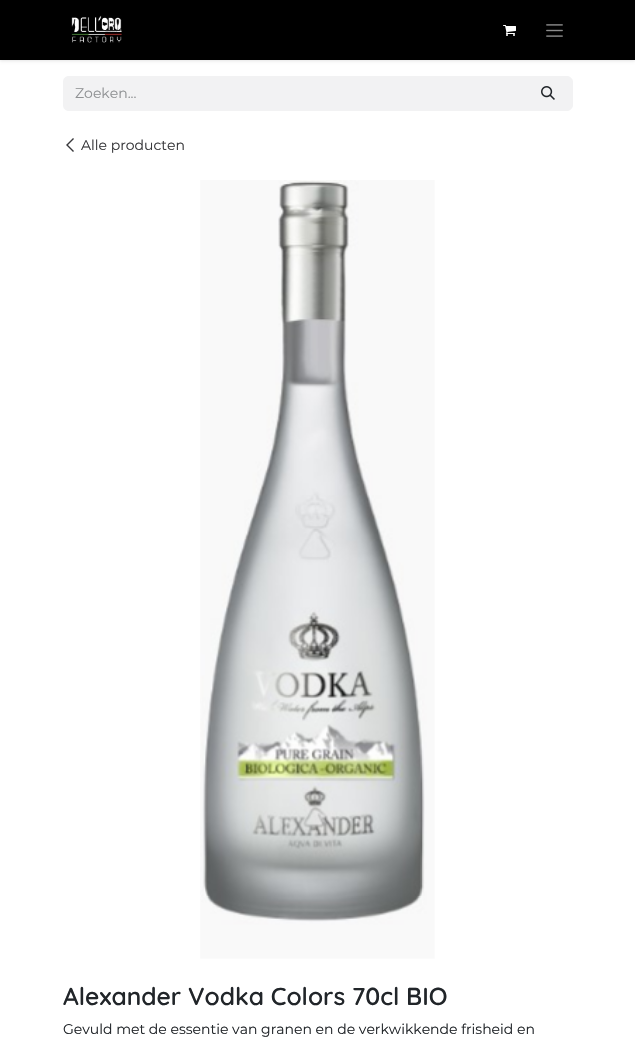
#include "include/core/SkBlurTypes.h"
#include "include/core/SkCanvas.h"
#include "include/core/SkData.h"
#include "include/core/SkFont.h"
#include "include/core/SkFontMgr.h"
#include "include/core/SkImage.h"
#include "include/core/SkMaskFilter.h"
#include "include/core/SkPaint.h"
#include "include/core/SkPathBuilder.h"
#include "include/core/SkTextBlob.h"
#include "include/effects/SkDashPathEffect.h"
#include "include/effects/SkGradientShader.h"
#include "include/utils/SkParsePath.h"

extern sk_sp<SkFontMgr> fontMgr;

void draw(SkCanvas* canvas) {
  SkPaint p;
  p.setAntiAlias(true);
  canvas->clear(SK_ColorWHITE);
  p.setColor(SkColorSetARGB(26, 0, 0, 0));
  p.setMaskFilter(SkMaskFilter::MakeBlur(kNormal_SkBlurStyle, 1.5f));
  canvas->drawRect(SkRect::MakeLTRB(0, 1, 635, 61), p);
  p.setMaskFilter(nullptr);
  p.setColor(SK_ColorBLACK);
  canvas->drawRect(SkRect::MakeLTRB(0, 0, 635, 60), p);
  canvas->drawImageRect(SkImages::DeferredFromEncodedData(SkData::MakeFromFileName("images/1.png")), SkRect::MakeLTRB(71, 15, 122, 43), SkSamplingOptions());
  canvas->drawImageRect(SkImages::DeferredFromEncodedData(SkData::MakeFromFileName("images/2.png")), SkRect::MakeLTRB(503, 25, 516, 36), SkSamplingOptions());
  canvas->drawImageRect(SkImages::DeferredFromEncodedData(SkData::MakeFromFileName("images/3.png")), SkRect::MakeLTRB(546, 24, 563, 37), SkSamplingOptions());
  p.setColor(SkColorSetRGB(242, 242, 243));
  canvas->drawPath(SkPathBuilder().moveTo(69, 76).lineTo(525, 76).lineTo(525, 111).lineTo(69, 111).cubicTo(65.5f, 111, 63, 108.5f, 63, 105).lineTo(63, 82).cubicTo(63, 78.5f, 65.5f, 76, 69, 76).close().detach(), p);
  canvas->drawPath(SkPathBuilder().moveTo(524.5f, 76.5f).lineTo(567, 76.5f).cubicTo(570, 76.5f, 572.5f, 79, 572.5f, 82).lineTo(572.5f, 105).cubicTo(572.5f, 108, 570, 110.5f, 567, 110.5f).lineTo(524.5f, 110.5f).close().detach(), p);
  p.setStyle(SkPaint::kStroke_Style);
  p.setStrokeWidth(1);
  canvas->drawPath(SkPathBuilder().moveTo(524.5f, 76.5f).lineTo(567, 76.5f).cubicTo(570, 76.5f, 572.5f, 79, 572.5f, 82).lineTo(572.5f, 105).cubicTo(572.5f, 108, 570, 110.5f, 567, 110.5f).lineTo(524.5f, 110.5f).close().detach(), p);
  canvas->drawImageRect(SkImages::DeferredFromEncodedData(SkData::MakeFromFileName("images/4.png")), SkRect::MakeLTRB(541, 86, 555, 100), SkSamplingOptions());
  canvas->drawImageRect(SkImages::DeferredFromEncodedData(SkData::MakeFromFileName("images/5.png")), SkRect::MakeLTRB(66, 138, 74, 152), SkSamplingOptions());
  canvas->drawImageRect(SkImages::DeferredFromEncodedData(SkData::MakeFromFileName("images/6.png")), SkRect::MakeLTRB(200, 180, 435, 959), SkSamplingOptions());
  SkFont font1(fontMgr->matchFamilyStyle("Montserrat", SkFontStyle::Normal()), 14);
  font1.setSubpixel(true);
  p.setStyle(SkPaint::kFill_Style);
  p.setColor(SkColorSetRGB(144, 146, 148));
  canvas->drawString("Zoeken...", 75, 98, font1, p);
  p.setColor(SkColorSetRGB(56, 56, 59));
  canvas->drawString("Alle producten", 81, 150, font1, p);
  SkFont font2(fontMgr->matchFamilyStyle("Quicksand", SkFontStyle(600, SkFontStyle::kNormal_Width, SkFontStyle::kUpright_Slant)), 24.6f);
  font2.setSubpixel(true);
  p.setColor(SkColorSetRGB(33, 37, 41));
  canvas->drawString("Alexander Vodka Colors 70cl BIO", 63, 1005, font2, p);
  canvas->drawString("Gevuld met de essentie van granen en de verkwikkende frisheid en", 63, 1034, font1, p);
}
